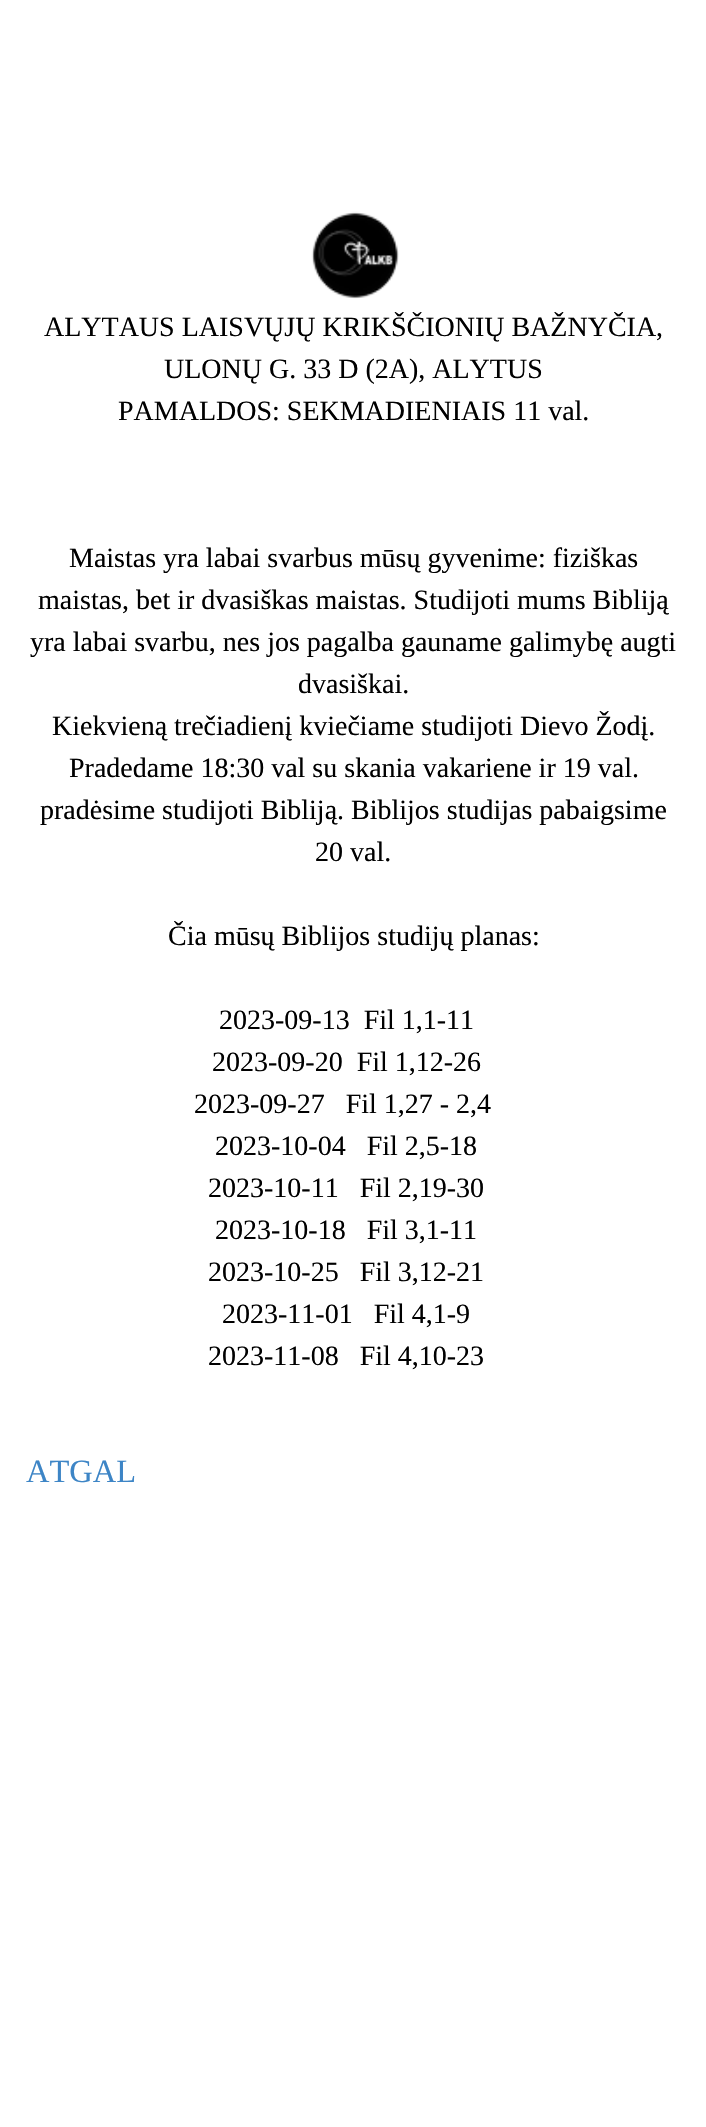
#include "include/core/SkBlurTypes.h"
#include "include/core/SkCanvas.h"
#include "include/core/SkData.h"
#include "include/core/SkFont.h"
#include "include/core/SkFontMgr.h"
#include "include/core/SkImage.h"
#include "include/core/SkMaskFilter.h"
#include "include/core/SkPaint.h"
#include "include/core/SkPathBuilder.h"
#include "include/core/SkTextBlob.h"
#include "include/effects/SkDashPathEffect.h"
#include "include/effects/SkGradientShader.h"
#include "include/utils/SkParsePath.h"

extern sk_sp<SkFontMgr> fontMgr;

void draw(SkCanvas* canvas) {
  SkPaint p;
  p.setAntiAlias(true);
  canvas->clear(SK_ColorWHITE);
  canvas->drawImageRect(SkImages::DeferredFromEncodedData(SkData::MakeFromFileName("images/1.png")), SkRect::MakeLTRB(311, 211, 399, 299), SkSamplingOptions());
  SkFont font1(fontMgr->matchFamilyStyle("Liberation Serif", SkFontStyle::Normal()), 28);
  font1.setSubpixel(true);
  p.setColor(SK_ColorBLACK);
  canvas->drawString("ALYTAUS LAISVŲJŲ KRIKŠČIONIŲ BAŽNYČIA,", 44, 336, font1, p);
  canvas->drawString("ULONŲ G. 33 D (2A), ALYTUS", 164, 378, font1, p);
  canvas->drawString("PAMALDOS: SEKMADIENIAIS 11 val.", 118, 420, font1, p);
  canvas->drawString("Maistas yra labai svarbus mūsų gyvenime: fiziškas", 69, 567, font1, p);
  canvas->drawString("maistas, bet ir dvasiškas maistas. Studijoti mums Bibliją", 38, 609, font1, p);
  canvas->drawString("yra labai svarbu, nes jos pagalba gauname galimybę augti", 30, 651, font1, p);
  canvas->drawString("dvasiškai.", 298, 693, font1, p);
  canvas->drawString("Kiekvieną trečiadienį kviečiame studijoti Dievo Žodį.", 52, 735, font1, p);
  canvas->drawString("Pradedame 18:30 val su skania vakariene ir 19 val.", 69, 777, font1, p);
  canvas->drawString("pradėsime studijoti Bibliją. Biblijos studijas pabaigsime", 40, 819, font1, p);
  canvas->drawString("20 val.", 315, 861, font1, p);
  canvas->drawString("Čia mūsų Biblijos studijų planas:", 168, 945, font1, p);
  canvas->drawString("2023-09-13  Fil 1,1-11", 219, 1029, font1, p);
  canvas->drawString("2023-09-20  Fil 1,12-26", 212, 1071, font1, p);
  canvas->drawString("2023-09-27   Fil 1,27 - 2,4", 194, 1113, font1, p);
  canvas->drawString("2023-10-04   Fil 2,5-18", 215, 1155, font1, p);
  canvas->drawString("2023-10-11   Fil 2,19-30", 208, 1197, font1, p);
  canvas->drawString("2023-10-18   Fil 3,1-11", 215, 1239, font1, p);
  canvas->drawString("2023-10-25   Fil 3,12-21", 208, 1281, font1, p);
  canvas->drawString("2023-11-01   Fil 4,1-9", 222, 1323, font1, p);
  canvas->drawString("2023-11-08   Fil 4,10-23", 208, 1365, font1, p);
  SkFont font2(fontMgr->matchFamilyStyle("Liberation Serif", SkFontStyle::Normal()), 32.5f);
  font2.setSubpixel(true);
  p.setColor(SkColorSetRGB(61, 133, 198));
  canvas->drawString("ATGAL", 26, 1482, font2, p);
}
